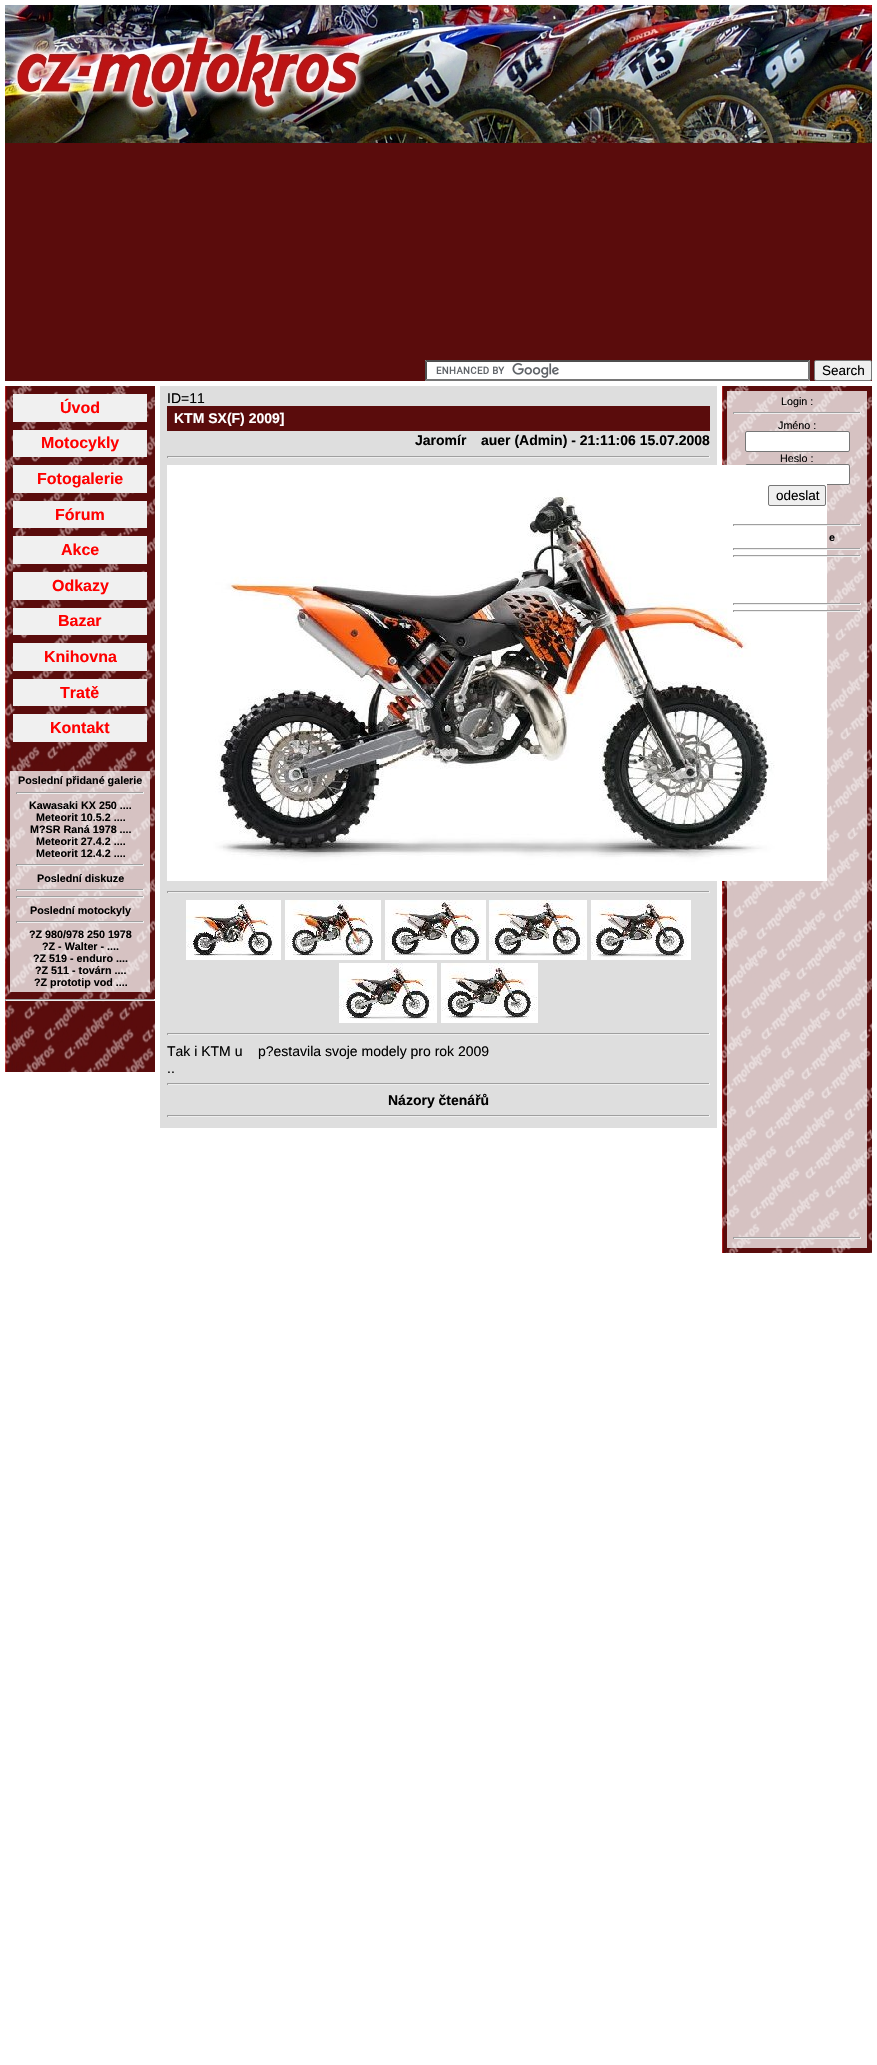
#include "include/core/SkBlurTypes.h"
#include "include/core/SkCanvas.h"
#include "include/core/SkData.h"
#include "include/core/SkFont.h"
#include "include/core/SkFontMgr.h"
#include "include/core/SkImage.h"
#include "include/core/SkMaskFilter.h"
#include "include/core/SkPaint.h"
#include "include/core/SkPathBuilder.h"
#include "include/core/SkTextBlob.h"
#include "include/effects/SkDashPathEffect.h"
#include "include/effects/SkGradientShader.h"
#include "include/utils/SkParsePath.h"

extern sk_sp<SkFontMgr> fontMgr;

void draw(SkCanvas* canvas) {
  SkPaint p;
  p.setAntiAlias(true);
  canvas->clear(SK_ColorWHITE);
  p.setColor(SkColorSetRGB(90, 12, 12));
  canvas->drawRect(SkRect::MakeLTRB(5, 143, 872, 381), p);
  canvas->drawImageRect(SkImages::DeferredFromEncodedData(SkData::MakeFromFileName("images/1.png")), SkRect::MakeLTRB(5, 5, 872, 143), SkSamplingOptions());
  p.setColor(SK_ColorWHITE);
  canvas->drawRect(SkRect::MakeLTRB(425, 360, 810, 381), p);
  canvas->drawImageRect(SkImages::DeferredFromEncodedData(SkData::MakeFromFileName("images/2.png")), SkRect::MakeLTRB(436, 363, 559, 378), SkSamplingOptions());
  p.setColor(SkColorSetRGB(79, 79, 79));
  canvas->drawPath(SkPathBuilder().moveTo(425, 360).lineTo(810, 360).lineTo(808, 362).lineTo(427, 362).close().detach(), p);
  p.setColor(SkColorSetRGB(118, 118, 118));
  canvas->drawPath(SkPathBuilder().moveTo(810, 360).lineTo(810, 381).lineTo(808, 379).lineTo(808, 362).close().detach(), p);
  canvas->drawPath(SkPathBuilder().moveTo(810, 381).lineTo(425, 381).lineTo(427, 379).lineTo(808, 379).close().detach(), p);
  p.setColor(SkColorSetRGB(79, 79, 79));
  canvas->drawPath(SkPathBuilder().moveTo(425, 381).lineTo(425, 360).lineTo(427, 362).lineTo(427, 379).close().detach(), p);
  p.setColor(SkColorSetRGB(239, 239, 239));
  canvas->drawRoundRect(SkRect::MakeLTRB(814.5f, 360.5f, 871.5f, 380.5f), 1.5f, 1.5f, p);
  p.setStyle(SkPaint::kStroke_Style);
  p.setStrokeWidth(1);
  p.setColor(SkColorSetRGB(118, 118, 118));
  canvas->drawRoundRect(SkRect::MakeLTRB(814.5f, 360.5f, 871.5f, 380.5f), 1.5f, 1.5f, p);
  canvas->drawImageRect(SkImages::DeferredFromEncodedData(SkData::MakeFromFileName("images/3.png")), SkRect::MakeLTRB(5, 386, 155, 1072), SkSamplingOptions());
  p.setStyle(SkPaint::kFill_Style);
  p.setColor(SkColorSetRGB(240, 240, 240));
  canvas->drawRect(SkRect::MakeLTRB(13, 394, 147, 422), p);
  canvas->drawRect(SkRect::MakeLTRB(13, 430, 147, 457), p);
  canvas->drawRect(SkRect::MakeLTRB(13, 465, 147, 493), p);
  canvas->drawRect(SkRect::MakeLTRB(13, 501, 147, 528), p);
  canvas->drawRect(SkRect::MakeLTRB(13, 536, 147, 564), p);
  canvas->drawRect(SkRect::MakeLTRB(13, 572, 147, 600), p);
  canvas->drawRect(SkRect::MakeLTRB(13, 608, 147, 635), p);
  canvas->drawRect(SkRect::MakeLTRB(13, 643, 147, 671), p);
  canvas->drawRect(SkRect::MakeLTRB(13, 679, 147, 706), p);
  canvas->drawRect(SkRect::MakeLTRB(13, 714, 147, 742), p);
  p.setColor(SkColorSetARGB(191, 255, 255, 255));
  canvas->drawRect(SkRect::MakeLTRB(10, 771, 150, 992), p);
  p.setColor(SkColorSetRGB(159, 159, 159));
  canvas->drawRect(SkRect::MakeLTRB(16, 792, 144, 793), p);
  p.setColor(SkColorSetRGB(238, 238, 238));
  canvas->drawRect(SkRect::MakeLTRB(143, 792, 144, 794), p);
  canvas->drawRect(SkRect::MakeLTRB(16, 793, 144, 794), p);
  p.setColor(SkColorSetRGB(159, 159, 159));
  canvas->drawRect(SkRect::MakeLTRB(16, 792, 17, 794), p);
  canvas->drawRect(SkRect::MakeLTRB(16, 864, 144, 865), p);
  p.setColor(SkColorSetRGB(238, 238, 238));
  canvas->drawRect(SkRect::MakeLTRB(143, 864, 144, 866), p);
  canvas->drawRect(SkRect::MakeLTRB(16, 865, 144, 866), p);
  p.setColor(SkColorSetRGB(159, 159, 159));
  canvas->drawRect(SkRect::MakeLTRB(16, 864, 17, 866), p);
  canvas->drawRect(SkRect::MakeLTRB(16, 889, 144, 890), p);
  p.setColor(SkColorSetRGB(238, 238, 238));
  canvas->drawRect(SkRect::MakeLTRB(143, 889, 144, 891), p);
  canvas->drawRect(SkRect::MakeLTRB(16, 890, 144, 891), p);
  p.setColor(SkColorSetRGB(159, 159, 159));
  canvas->drawRect(SkRect::MakeLTRB(16, 889, 17, 891), p);
  canvas->drawRect(SkRect::MakeLTRB(16, 896, 144, 897), p);
  p.setColor(SkColorSetRGB(238, 238, 238));
  canvas->drawRect(SkRect::MakeLTRB(143, 896, 144, 898), p);
  canvas->drawRect(SkRect::MakeLTRB(16, 897, 144, 898), p);
  p.setColor(SkColorSetRGB(159, 159, 159));
  canvas->drawRect(SkRect::MakeLTRB(16, 896, 17, 898), p);
  canvas->drawRect(SkRect::MakeLTRB(16, 921, 144, 922), p);
  p.setColor(SkColorSetRGB(238, 238, 238));
  canvas->drawRect(SkRect::MakeLTRB(143, 921, 144, 923), p);
  canvas->drawRect(SkRect::MakeLTRB(16, 922, 144, 923), p);
  p.setColor(SkColorSetRGB(159, 159, 159));
  canvas->drawRect(SkRect::MakeLTRB(16, 921, 17, 923), p);
  canvas->drawRect(SkRect::MakeLTRB(5, 999, 155, 1000), p);
  p.setColor(SkColorSetRGB(238, 238, 238));
  canvas->drawRect(SkRect::MakeLTRB(154, 999, 155, 1001), p);
  canvas->drawRect(SkRect::MakeLTRB(5, 1000, 155, 1001), p);
  p.setColor(SkColorSetRGB(159, 159, 159));
  canvas->drawRect(SkRect::MakeLTRB(5, 999, 6, 1001), p);
  p.setColor(SkColorSetRGB(222, 222, 222));
  canvas->drawRect(SkRect::MakeLTRB(160, 386, 717, 1128), p);
  p.setColor(SkColorSetRGB(90, 12, 12));
  canvas->drawRect(SkRect::MakeLTRB(167, 406, 710, 431), p);
  p.setColor(SkColorSetRGB(159, 159, 159));
  canvas->drawRect(SkRect::MakeLTRB(167, 456, 710, 457), p);
  p.setColor(SkColorSetRGB(238, 238, 238));
  canvas->drawRect(SkRect::MakeLTRB(709, 456, 710, 458), p);
  canvas->drawRect(SkRect::MakeLTRB(167, 457, 710, 458), p);
  p.setColor(SkColorSetRGB(159, 159, 159));
  canvas->drawRect(SkRect::MakeLTRB(167, 456, 168, 458), p);
  canvas->drawImageRect(SkImages::DeferredFromEncodedData(SkData::MakeFromFileName("images/12.png")), SkRect::MakeLTRB(722, 386, 872, 1253), SkSamplingOptions());
  p.setColor(SK_ColorWHITE);
  canvas->drawRoundRect(SkRect::MakeLTRB(745.5f, 464.5f, 849.5f, 484.5f), 1.5f, 1.5f, p);
  p.setStyle(SkPaint::kStroke_Style);
  p.setColor(SkColorSetRGB(118, 118, 118));
  canvas->drawRoundRect(SkRect::MakeLTRB(745.5f, 464.5f, 849.5f, 484.5f), 1.5f, 1.5f, p);
  canvas->drawImageRect(SkImages::DeferredFromEncodedData(SkData::MakeFromFileName("images/4.png")), SkRect::MakeLTRB(167, 465, 827, 881), SkSamplingOptions());
  p.setStyle(SkPaint::kFill_Style);
  p.setColor(SkColorSetRGB(159, 159, 159));
  canvas->drawRect(SkRect::MakeLTRB(167, 891, 710, 892), p);
  p.setColor(SkColorSetRGB(238, 238, 238));
  canvas->drawRect(SkRect::MakeLTRB(709, 891, 710, 893), p);
  canvas->drawRect(SkRect::MakeLTRB(167, 892, 710, 893), p);
  p.setColor(SkColorSetRGB(159, 159, 159));
  canvas->drawRect(SkRect::MakeLTRB(167, 891, 168, 893), p);
  canvas->drawImageRect(SkImages::DeferredFromEncodedData(SkData::MakeFromFileName("images/5.png")), SkRect::MakeLTRB(186, 900, 281, 960), SkSamplingOptions());
  canvas->drawImageRect(SkImages::DeferredFromEncodedData(SkData::MakeFromFileName("images/6.png")), SkRect::MakeLTRB(285, 900, 381, 960), SkSamplingOptions());
  canvas->drawImageRect(SkImages::DeferredFromEncodedData(SkData::MakeFromFileName("images/7.png")), SkRect::MakeLTRB(385, 900, 486, 960), SkSamplingOptions());
  canvas->drawImageRect(SkImages::DeferredFromEncodedData(SkData::MakeFromFileName("images/8.png")), SkRect::MakeLTRB(489, 900, 587, 960), SkSamplingOptions());
  canvas->drawImageRect(SkImages::DeferredFromEncodedData(SkData::MakeFromFileName("images/9.png")), SkRect::MakeLTRB(591, 900, 691, 960), SkSamplingOptions());
  canvas->drawImageRect(SkImages::DeferredFromEncodedData(SkData::MakeFromFileName("images/10.png")), SkRect::MakeLTRB(339, 963, 437, 1023), SkSamplingOptions());
  canvas->drawImageRect(SkImages::DeferredFromEncodedData(SkData::MakeFromFileName("images/11.png")), SkRect::MakeLTRB(441, 963, 538, 1023), SkSamplingOptions());
  canvas->drawRect(SkRect::MakeLTRB(167, 1033, 710, 1034), p);
  p.setColor(SkColorSetRGB(238, 238, 238));
  canvas->drawRect(SkRect::MakeLTRB(709, 1033, 710, 1035), p);
  canvas->drawRect(SkRect::MakeLTRB(167, 1034, 710, 1035), p);
  p.setColor(SkColorSetRGB(159, 159, 159));
  canvas->drawRect(SkRect::MakeLTRB(167, 1033, 168, 1035), p);
  canvas->drawRect(SkRect::MakeLTRB(167, 1083, 710, 1084), p);
  p.setColor(SkColorSetRGB(238, 238, 238));
  canvas->drawRect(SkRect::MakeLTRB(709, 1083, 710, 1085), p);
  canvas->drawRect(SkRect::MakeLTRB(167, 1084, 710, 1085), p);
  p.setColor(SkColorSetRGB(159, 159, 159));
  canvas->drawRect(SkRect::MakeLTRB(167, 1083, 168, 1085), p);
  canvas->drawRect(SkRect::MakeLTRB(167, 1115, 710, 1116), p);
  p.setColor(SkColorSetRGB(238, 238, 238));
  canvas->drawRect(SkRect::MakeLTRB(709, 1115, 710, 1117), p);
  canvas->drawRect(SkRect::MakeLTRB(167, 1116, 710, 1117), p);
  p.setColor(SkColorSetRGB(159, 159, 159));
  canvas->drawRect(SkRect::MakeLTRB(167, 1115, 168, 1117), p);
  canvas->drawRect(SkRect::MakeLTRB(733, 412, 861, 413), p);
  p.setColor(SkColorSetRGB(238, 238, 238));
  canvas->drawRect(SkRect::MakeLTRB(860, 412, 861, 414), p);
  canvas->drawRect(SkRect::MakeLTRB(733, 413, 861, 414), p);
  p.setColor(SkColorSetRGB(159, 159, 159));
  canvas->drawRect(SkRect::MakeLTRB(733, 412, 734, 414), p);
  p.setColor(SK_ColorWHITE);
  canvas->drawRoundRect(SkRect::MakeLTRB(745.5f, 431.5f, 849.5f, 451.5f), 1.5f, 1.5f, p);
  p.setStyle(SkPaint::kStroke_Style);
  p.setColor(SkColorSetRGB(118, 118, 118));
  canvas->drawRoundRect(SkRect::MakeLTRB(745.5f, 431.5f, 849.5f, 451.5f), 1.5f, 1.5f, p);
  p.setStyle(SkPaint::kFill_Style);
  p.setColor(SkColorSetRGB(239, 239, 239));
  canvas->drawRoundRect(SkRect::MakeLTRB(768.5f, 485.5f, 825.5f, 505.5f), 1.5f, 1.5f, p);
  p.setStyle(SkPaint::kStroke_Style);
  p.setColor(SkColorSetRGB(118, 118, 118));
  canvas->drawRoundRect(SkRect::MakeLTRB(768.5f, 485.5f, 825.5f, 505.5f), 1.5f, 1.5f, p);
  p.setStyle(SkPaint::kFill_Style);
  p.setColor(SkColorSetRGB(159, 159, 159));
  canvas->drawRect(SkRect::MakeLTRB(733, 524, 861, 525), p);
  p.setColor(SkColorSetRGB(238, 238, 238));
  canvas->drawRect(SkRect::MakeLTRB(860, 524, 861, 526), p);
  canvas->drawRect(SkRect::MakeLTRB(733, 525, 861, 526), p);
  p.setColor(SkColorSetRGB(159, 159, 159));
  canvas->drawRect(SkRect::MakeLTRB(733, 524, 734, 526), p);
  canvas->drawRect(SkRect::MakeLTRB(733, 548, 861, 549), p);
  p.setColor(SkColorSetRGB(238, 238, 238));
  canvas->drawRect(SkRect::MakeLTRB(860, 548, 861, 550), p);
  canvas->drawRect(SkRect::MakeLTRB(733, 549, 861, 550), p);
  p.setColor(SkColorSetRGB(159, 159, 159));
  canvas->drawRect(SkRect::MakeLTRB(733, 548, 734, 550), p);
  canvas->drawRect(SkRect::MakeLTRB(733, 555, 861, 556), p);
  p.setColor(SkColorSetRGB(238, 238, 238));
  canvas->drawRect(SkRect::MakeLTRB(860, 555, 861, 557), p);
  canvas->drawRect(SkRect::MakeLTRB(733, 556, 861, 557), p);
  p.setColor(SkColorSetRGB(159, 159, 159));
  canvas->drawRect(SkRect::MakeLTRB(733, 555, 734, 557), p);
  canvas->drawRect(SkRect::MakeLTRB(733, 603, 861, 604), p);
  p.setColor(SkColorSetRGB(238, 238, 238));
  canvas->drawRect(SkRect::MakeLTRB(860, 603, 861, 605), p);
  canvas->drawRect(SkRect::MakeLTRB(733, 604, 861, 605), p);
  p.setColor(SkColorSetRGB(159, 159, 159));
  canvas->drawRect(SkRect::MakeLTRB(733, 603, 734, 605), p);
  canvas->drawRect(SkRect::MakeLTRB(733, 610, 861, 611), p);
  p.setColor(SkColorSetRGB(238, 238, 238));
  canvas->drawRect(SkRect::MakeLTRB(860, 610, 861, 612), p);
  canvas->drawRect(SkRect::MakeLTRB(733, 611, 861, 612), p);
  p.setColor(SkColorSetRGB(159, 159, 159));
  canvas->drawRect(SkRect::MakeLTRB(733, 610, 734, 612), p);
  canvas->drawRect(SkRect::MakeLTRB(733, 1237, 861, 1238), p);
  p.setColor(SkColorSetRGB(238, 238, 238));
  canvas->drawRect(SkRect::MakeLTRB(860, 1237, 861, 1239), p);
  canvas->drawRect(SkRect::MakeLTRB(733, 1238, 861, 1239), p);
  p.setColor(SkColorSetRGB(159, 159, 159));
  canvas->drawRect(SkRect::MakeLTRB(733, 1237, 734, 1239), p);
  SkFont font1(fontMgr->matchFamilyStyle("Liberation Sans", SkFontStyle::Normal()), 13.5f);
  font1.setSubpixel(true);
  p.setColor(SK_ColorBLACK);
  canvas->drawString("Search", 822, 375, font1, p);
  SkFont font2(fontMgr->matchFamilyStyle("Liberation Sans", SkFontStyle::Bold()), 16);
  font2.setSubpixel(true);
  p.setColor(SkColorSetRGB(255, 0, 0));
  canvas->drawString("Úvod", 60, 413, font2, p);
  canvas->drawString("Motocykly", 41, 448, font2, p);
  canvas->drawString("Fotogalerie", 37, 484, font2, p);
  canvas->drawString("Fórum", 55, 520, font2, p);
  canvas->drawString("Akce", 61, 555, font2, p);
  canvas->drawString("Odkazy", 52, 591, font2, p);
  canvas->drawString("Bazar", 58, 626, font2, p);
  canvas->drawString("Knihovna", 44, 662, font2, p);
  canvas->drawString("Tratě", 60, 698, font2, p);
  canvas->drawString("Kontakt", 50, 733, font2, p);
  SkFont font3(fontMgr->matchFamilyStyle("Liberation Sans", SkFontStyle::Bold()), 10.75f);
  font3.setSubpixel(true);
  p.setColor(SK_ColorBLACK);
  canvas->drawString("Poslední přidané galerie", 18, 784, font3, p);
  canvas->drawString("Kawasaki KX 250 ....", 29, 809, font3, p);
  canvas->drawString("Meteorit 10.5.2 ....", 36, 821, font3, p);
  canvas->drawString("M?SR Raná 1978 ....", 30, 833, font3, p);
  canvas->drawString("Meteorit 27.4.2 ....", 36, 845, font3, p);
  canvas->drawString("Meteorit 12.4.2 ....", 36, 857, font3, p);
  canvas->drawString("Poslední diskuze", 37, 882, font3, p);
  canvas->drawString("Poslední motockyly", 30, 914, font3, p);
  canvas->drawString("?Z 980/978 250 1978", 29, 938, font3, p);
  canvas->drawString("?Z - Walter - ....", 42, 950, font3, p);
  canvas->drawString("?Z 519 - enduro ....", 33, 962, font3, p);
  canvas->drawString("?Z 511 - továrn ....", 35, 974, font3, p);
  canvas->drawString("?Z prototip vod ....", 34, 986, font3, p);
  SkFont font4(fontMgr->matchFamilyStyle("Liberation Sans", SkFontStyle::Normal()), 14);
  font4.setSubpixel(true);
  canvas->drawString("ID=11", 167, 403, font4, p);
  SkFont font5(fontMgr->matchFamilyStyle("Liberation Sans", SkFontStyle::Bold()), 14);
  font5.setSubpixel(true);
  p.setColor(SK_ColorWHITE);
  canvas->drawString("KTM SX(F) 2009]", 174, 423, font5, p);
  p.setColor(SK_ColorBLACK);
  canvas->drawString("Jaromír", 415, 445, font5, p);
  canvas->drawString("auer (Admin) - 21:11:06 15.07.2008", 481, 445, font5, p);
  canvas->drawString("Tak i KTM u", 167, 1056, font4, p);
  canvas->drawString("p?estavila svoje modely pro rok 2009", 258, 1056, font4, p);
  canvas->drawString("..", 167, 1073, font4, p);
  canvas->drawString("Názory čtenářů", 388, 1105, font5, p);
  SkFont font6(fontMgr->matchFamilyStyle("Liberation Sans", SkFontStyle::Normal()), 10.75f);
  font6.setSubpixel(true);
  canvas->drawString("Login :", 781, 405, font6, p);
  canvas->drawString("Jméno :", 778, 429, font6, p);
  canvas->drawString("Heslo :", 780, 462, font6, p);
  canvas->drawString("odeslat", 776, 500, font1, p);
  canvas->drawString("e", 829, 541, font3, p);
}
